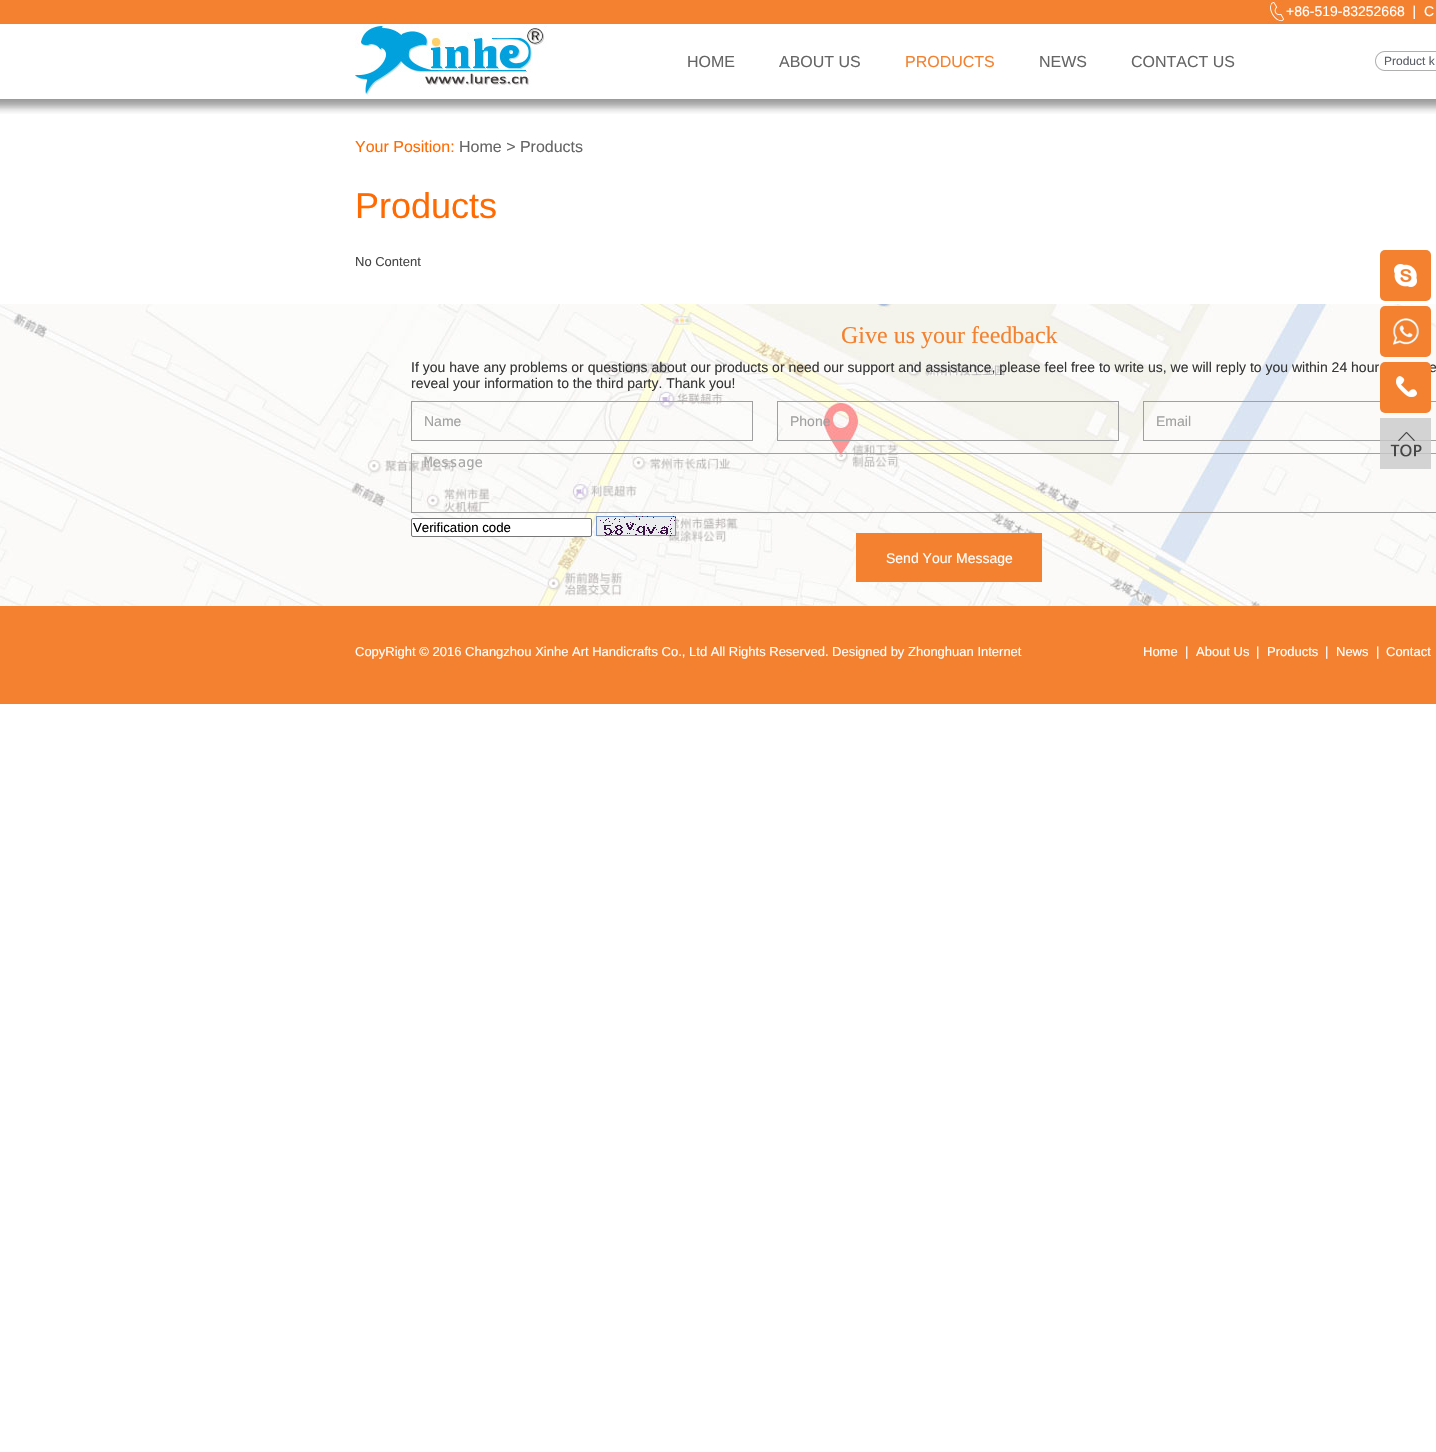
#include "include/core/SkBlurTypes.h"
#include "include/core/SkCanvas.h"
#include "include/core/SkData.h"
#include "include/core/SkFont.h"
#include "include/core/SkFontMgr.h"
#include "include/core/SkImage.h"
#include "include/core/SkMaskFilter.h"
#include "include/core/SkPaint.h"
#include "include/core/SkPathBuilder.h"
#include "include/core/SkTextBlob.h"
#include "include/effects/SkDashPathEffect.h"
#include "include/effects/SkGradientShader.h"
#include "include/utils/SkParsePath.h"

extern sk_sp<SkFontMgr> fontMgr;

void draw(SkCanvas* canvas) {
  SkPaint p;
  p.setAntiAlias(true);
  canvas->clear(SK_ColorWHITE);
  p.setColor(SkColorSetRGB(243, 129, 48));
  canvas->drawRect(SkRect::MakeLTRB(0, 0, 1436, 24), p);
  canvas->drawImageRect(SkImages::DeferredFromEncodedData(SkData::MakeFromFileName("images/1.png")), SkRect::MakeLTRB(1267, 0, 1286, 24), SkSamplingOptions());
  canvas->drawImageRect(SkImages::DeferredFromEncodedData(SkData::MakeFromFileName("images/2.png")), SkRect::MakeLTRB(355, 24, 547, 96), SkSamplingOptions());
  canvas->drawImageRect(SkImages::DeferredFromEncodedData(SkData::MakeFromFileName("images/3.png")), SkRect::MakeLTRB(1375, 51, 1436, 71), SkSamplingOptions());
  canvas->drawImageRect(SkImages::DeferredFromEncodedData(SkData::MakeFromFileName("images/4.png")), SkRect::MakeLTRB(0, 99, 1436, 114), SkSamplingOptions());
  canvas->drawImageRect(SkImages::DeferredFromEncodedData(SkData::MakeFromFileName("images/5.png")), SkRect::MakeLTRB(0, 304, 1436, 606), SkSamplingOptions());
  p.setStyle(SkPaint::kStroke_Style);
  p.setStrokeWidth(1);
  p.setColor(SkColorSetRGB(160, 160, 160));
  canvas->drawRect(SkRect::MakeLTRB(411.5f, 401.5f, 752.5f, 440.5f), p);
  canvas->drawRect(SkRect::MakeLTRB(777.5f, 401.5f, 1118.5f, 440.5f), p);
  canvas->drawRect(SkRect::MakeLTRB(1143.5f, 401.5f, 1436.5f, 440.5f), p);
  canvas->drawRect(SkRect::MakeLTRB(411.5f, 453.5f, 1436.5f, 512.5f), p);
  p.setStyle(SkPaint::kFill_Style);
  p.setColor(SK_ColorWHITE);
  canvas->drawRoundRect(SkRect::MakeLTRB(411.5f, 518.5f, 591.5f, 536.5f), 1.5f, 1.5f, p);
  p.setStyle(SkPaint::kStroke_Style);
  p.setColor(SkColorSetRGB(118, 118, 118));
  canvas->drawRoundRect(SkRect::MakeLTRB(411.5f, 518.5f, 591.5f, 536.5f), 1.5f, 1.5f, p);
  canvas->drawImageRect(SkImages::DeferredFromEncodedData(SkData::MakeFromFileName("images/6.png")), SkRect::MakeLTRB(596, 516, 676, 536), SkSamplingOptions());
  p.setStyle(SkPaint::kFill_Style);
  p.setColor(SkColorSetRGB(243, 129, 48));
  canvas->drawRect(SkRect::MakeLTRB(856, 533, 1042, 582), p);
  canvas->drawRect(SkRect::MakeLTRB(0, 606, 1436, 704), p);
  canvas->drawRoundRect(SkRect::MakeLTRB(1380, 250, 1431, 301), 5, 5, p);
  canvas->drawImageRect(SkImages::DeferredFromEncodedData(SkData::MakeFromFileName("images/7.png")), SkRect::MakeLTRB(1394, 264, 1417, 287), SkSamplingOptions());
  canvas->drawRoundRect(SkRect::MakeLTRB(1380, 306, 1431, 357), 5, 5, p);
  canvas->drawImageRect(SkImages::DeferredFromEncodedData(SkData::MakeFromFileName("images/8.png")), SkRect::MakeLTRB(1393, 318, 1419, 345), SkSamplingOptions());
  canvas->drawImageRect(SkImages::DeferredFromEncodedData(SkData::MakeFromFileName("images/10.png")), SkRect::MakeLTRB(1380, 418, 1431, 469), SkSamplingOptions());
  SkFont font1(fontMgr->matchFamilyStyle("Liberation Sans", SkFontStyle::Normal()), 14);
  font1.setSubpixel(true);
  p.setColor(SK_ColorWHITE);
  canvas->drawString("+86-519-83252668  |", 1286, 16, font1, p);
  canvas->drawString("C", 1424, 16, font1, p);
  SkFont font2(fontMgr->matchFamilyStyle("Liberation Sans", SkFontStyle::Normal()), 16);
  font2.setSubpixel(true);
  p.setColor(SkColorSetRGB(101, 101, 101));
  canvas->drawString("HOME", 687, 67, font2, p);
  canvas->drawString("ABOUT US", 779, 67, font2, p);
  p.setColor(SkColorSetRGB(243, 129, 48));
  canvas->drawString("PRODUCTS", 905, 67, font2, p);
  p.setColor(SkColorSetRGB(101, 101, 101));
  canvas->drawString("NEWS", 1039, 67, font2, p);
  canvas->drawString("CONTACT US", 1131, 67, font2, p);
  SkFont font3(fontMgr->matchFamilyStyle("Liberation Sans", SkFontStyle::Normal()), 12);
  font3.setSubpixel(true);
  p.setColor(SkColorSetRGB(89, 93, 102));
  canvas->drawString("Product k", 1384, 65, font3, p);
  p.setColor(SkColorSetRGB(255, 107, 2));
  canvas->drawString("Your Position:", 355, 152, font2, p);
  p.setColor(SkColorSetRGB(101, 101, 101));
  canvas->drawString("Home > Products", 459, 152, font2, p);
  SkFont font4(fontMgr->matchFamilyStyle("Liberation Sans", SkFontStyle::Normal()), 36);
  font4.setSubpixel(true);
  p.setColor(SkColorSetRGB(255, 107, 2));
  canvas->drawString("Products", 355, 218, font4, p);
  SkFont font5(fontMgr->matchFamilyStyle("Liberation Sans", SkFontStyle::Normal()), 13);
  font5.setSubpixel(true);
  p.setColor(SkColorSetRGB(69, 69, 69));
  canvas->drawString("No Content", 355, 266, font5, p);
  SkFont font6(fontMgr->matchFamilyStyle("Liberation Serif", SkFontStyle::Normal()), 24);
  font6.setSubpixel(true);
  p.setColor(SkColorSetRGB(243, 129, 48));
  canvas->drawString("Give us your feedback", 841, 343, font6, p);
  p.setColor(SkColorSetRGB(54, 54, 54));
  canvas->drawString("If you have any problems or questions about our products or need our support and assistance, please feel free to write us, we will reply to you within 24 hour", 411, 372, font1, p);
  canvas->drawString("e", 1429, 372, font1, p);
  canvas->drawString("reveal your information to the third party. Thank you!", 411, 388, font1, p);
  p.setColor(SkColorSetRGB(160, 160, 160));
  canvas->drawString("Name", 424, 426, font1, p);
  canvas->drawString("Phone", 790, 426, font1, p);
  canvas->drawString("Email", 1156, 426, font1, p);
  SkFont font7(fontMgr->matchFamilyStyle("DejaVu Sans Mono", SkFontStyle::Normal()), 14);
  font7.setSubpixel(true);
  p.setColor(SkColorSetRGB(166, 166, 166));
  canvas->drawString("Message", 424, 467, font7, p);
  SkFont font8(fontMgr->matchFamilyStyle("Liberation Sans", SkFontStyle::Normal()), 13.25f);
  font8.setSubpixel(true);
  p.setColor(SK_ColorBLACK);
  canvas->drawString("Verification code", 413, 532, font8, p);
  p.setColor(SK_ColorWHITE);
  canvas->drawString("Send Your Message", 886, 563, font1, p);
  canvas->drawString("CopyRight © 2016 Changzhou Xinhe Art Handicrafts Co., Ltd All Rights Reserved. Designed by Zhonghuan Internet", 355, 656, font5, p);
  canvas->drawString("Home", 1143, 656, font5, p);
  canvas->drawString("|", 1185, 656, font5, p);
  canvas->drawString("About Us", 1196, 656, font5, p);
  canvas->drawString("|", 1256, 656, font5, p);
  canvas->drawString("Products", 1267, 656, font5, p);
  canvas->drawString("|", 1325, 656, font5, p);
  canvas->drawString("News", 1336, 656, font5, p);
  canvas->drawString("|", 1376, 656, font5, p);
  canvas->drawString("Contact", 1386, 656, font5, p);
  p.setColor(SkColorSetRGB(243, 129, 48));
  canvas->drawRoundRect(SkRect::MakeLTRB(1380, 362, 1431, 413), 5, 5, p);
  canvas->drawImageRect(SkImages::DeferredFromEncodedData(SkData::MakeFromFileName("images/9.png")), SkRect::MakeLTRB(1396, 376, 1417, 397), SkSamplingOptions());
}
